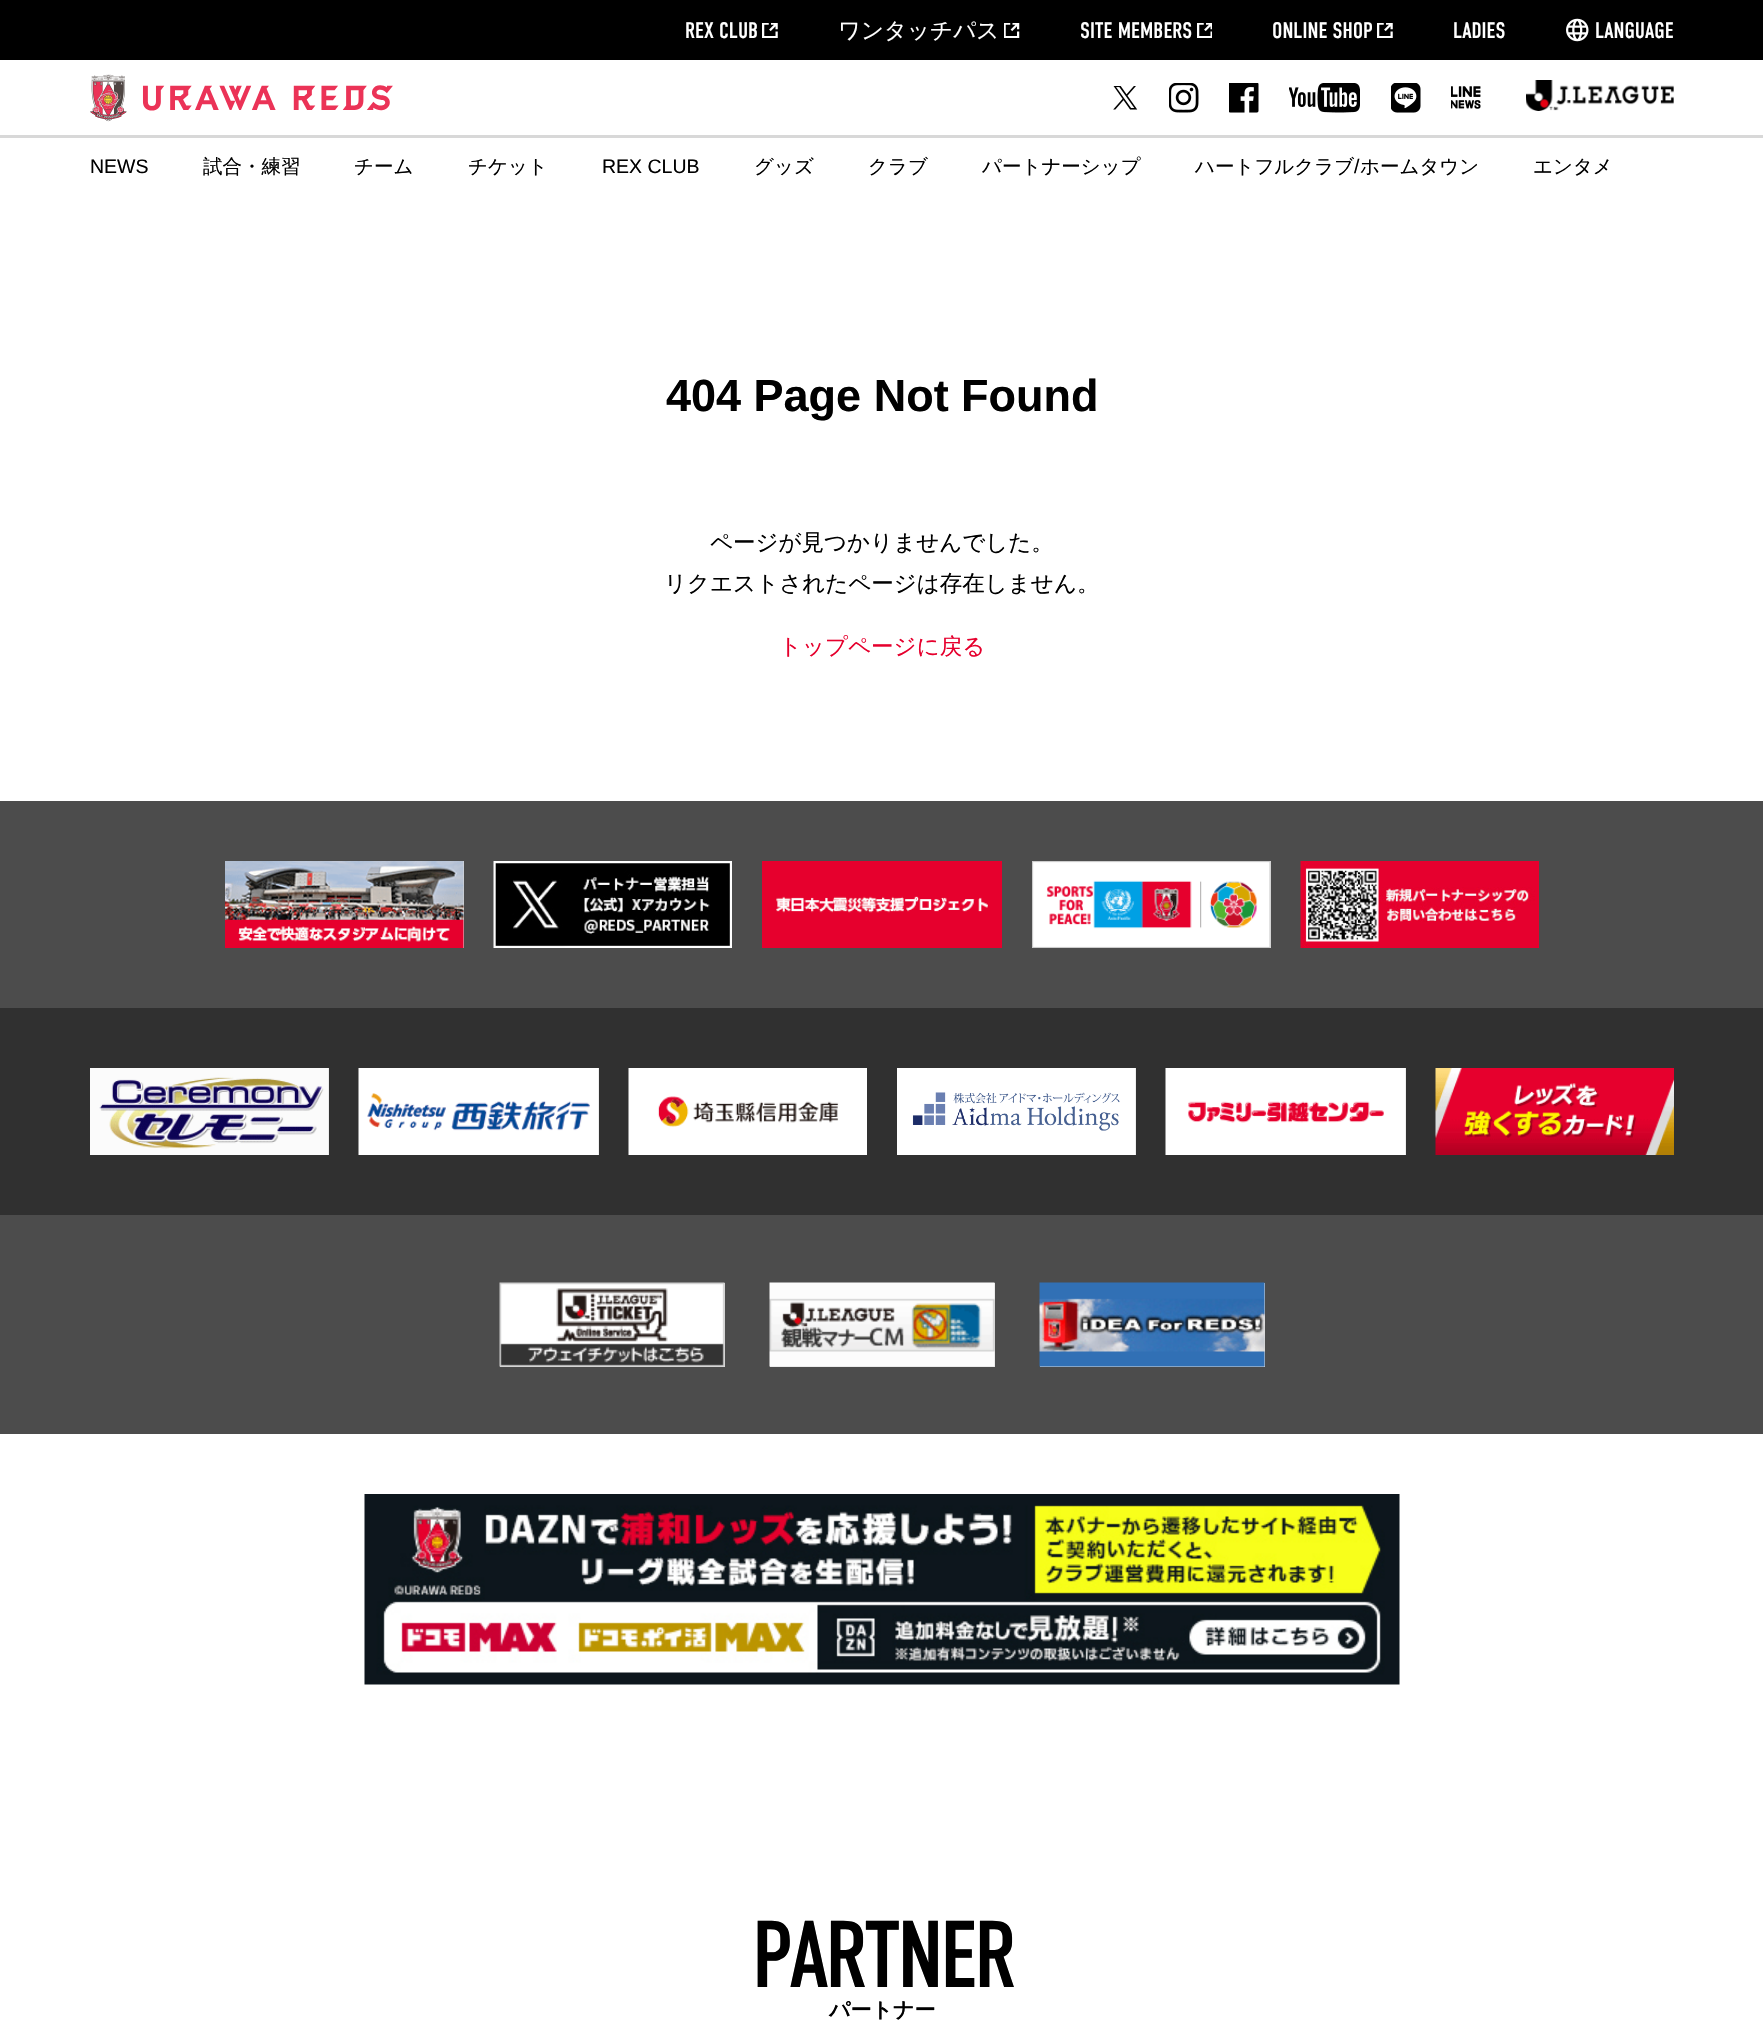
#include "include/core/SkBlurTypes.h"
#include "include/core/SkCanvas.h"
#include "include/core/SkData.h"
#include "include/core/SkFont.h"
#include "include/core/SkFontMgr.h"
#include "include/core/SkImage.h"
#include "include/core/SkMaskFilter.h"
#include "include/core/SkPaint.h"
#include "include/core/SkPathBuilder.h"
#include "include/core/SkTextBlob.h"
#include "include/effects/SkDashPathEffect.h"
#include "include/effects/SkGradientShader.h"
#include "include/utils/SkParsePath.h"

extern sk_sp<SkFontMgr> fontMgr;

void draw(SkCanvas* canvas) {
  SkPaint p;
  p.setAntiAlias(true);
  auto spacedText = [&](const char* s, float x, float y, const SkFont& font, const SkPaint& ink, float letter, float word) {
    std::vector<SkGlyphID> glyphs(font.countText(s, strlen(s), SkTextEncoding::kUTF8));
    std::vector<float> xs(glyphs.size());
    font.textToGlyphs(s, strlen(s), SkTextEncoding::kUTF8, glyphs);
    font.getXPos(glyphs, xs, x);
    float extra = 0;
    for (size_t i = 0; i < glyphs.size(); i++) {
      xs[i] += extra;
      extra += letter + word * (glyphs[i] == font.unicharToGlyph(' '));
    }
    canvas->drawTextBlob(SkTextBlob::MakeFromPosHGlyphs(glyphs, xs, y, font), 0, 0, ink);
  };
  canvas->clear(SK_ColorWHITE);
  p.setColor(SK_ColorBLACK);
  canvas->drawRect(SkRect::MakeLTRB(0, 0, 1763, 60), p);
  canvas->drawImageRect(SkImages::DeferredFromEncodedData(SkData::MakeFromFileName("images/1.png")), SkRect::MakeLTRB(762, 23, 778, 38), SkSamplingOptions());
  canvas->drawImageRect(SkImages::DeferredFromEncodedData(SkData::MakeFromFileName("images/2.png")), SkRect::MakeLTRB(1004, 23, 1020, 38), SkSamplingOptions());
  canvas->drawImageRect(SkImages::DeferredFromEncodedData(SkData::MakeFromFileName("images/3.png")), SkRect::MakeLTRB(1197, 23, 1212, 38), SkSamplingOptions());
  canvas->drawImageRect(SkImages::DeferredFromEncodedData(SkData::MakeFromFileName("images/1.png")), SkRect::MakeLTRB(1377, 23, 1393, 38), SkSamplingOptions());
  canvas->drawImageRect(SkImages::DeferredFromEncodedData(SkData::MakeFromFileName("images/4.png")), SkRect::MakeLTRB(1566, 18, 1589, 42), SkSamplingOptions());
  canvas->drawImageRect(SkImages::DeferredFromEncodedData(SkData::MakeFromFileName("images/5.png")), SkRect::MakeLTRB(90, 74, 393, 122), SkSamplingOptions());
  canvas->drawImageRect(SkImages::DeferredFromEncodedData(SkData::MakeFromFileName("images/6.png")), SkRect::MakeLTRB(1113, 86, 1138, 110), SkSamplingOptions());
  canvas->drawImageRect(SkImages::DeferredFromEncodedData(SkData::MakeFromFileName("images/7.png")), SkRect::MakeLTRB(1169, 83, 1199, 113), SkSamplingOptions());
  canvas->drawImageRect(SkImages::DeferredFromEncodedData(SkData::MakeFromFileName("images/8.png")), SkRect::MakeLTRB(1229, 83, 1259, 113), SkSamplingOptions());
  canvas->drawImageRect(SkImages::DeferredFromEncodedData(SkData::MakeFromFileName("images/9.png")), SkRect::MakeLTRB(1289, 83, 1360, 113), SkSamplingOptions());
  canvas->drawImageRect(SkImages::DeferredFromEncodedData(SkData::MakeFromFileName("images/10.png")), SkRect::MakeLTRB(1391, 83, 1421, 113), SkSamplingOptions());
  canvas->drawImageRect(SkImages::DeferredFromEncodedData(SkData::MakeFromFileName("images/11.png")), SkRect::MakeLTRB(1451, 86, 1481, 109), SkSamplingOptions());
  canvas->drawImageRect(SkImages::DeferredFromEncodedData(SkData::MakeFromFileName("images/12.png")), SkRect::MakeLTRB(1526, 80, 1674, 111), SkSamplingOptions());
  p.setColor(SkColorSetRGB(216, 216, 216));
  canvas->drawRect(SkRect::MakeLTRB(0, 135, 1763, 138), p);
  p.setColor(SkColorSetRGB(76, 76, 76));
  canvas->drawRect(SkRect::MakeLTRB(0, 801, 1763, 1008), p);
  p.setColor(SkColorSetRGB(221, 221, 221));
  canvas->drawRect(SkRect::MakeLTRB(463, 861, 464, 948), p);
  canvas->drawImageRect(SkImages::DeferredFromEncodedData(SkData::MakeFromFileName("images/13.png")), SkRect::MakeLTRB(225, 861, 464, 948), SkSamplingOptions());
  canvas->drawImageRect(SkImages::DeferredFromEncodedData(SkData::MakeFromFileName("images/14.png")), SkRect::MakeLTRB(493, 861, 732, 948), SkSamplingOptions());
  canvas->drawImageRect(SkImages::DeferredFromEncodedData(SkData::MakeFromFileName("images/15.png")), SkRect::MakeLTRB(762, 861, 1002, 948), SkSamplingOptions());
  canvas->drawRect(SkRect::MakeLTRB(1270, 861, 1271, 948), p);
  canvas->drawImageRect(SkImages::DeferredFromEncodedData(SkData::MakeFromFileName("images/16.png")), SkRect::MakeLTRB(1032, 861, 1271, 948), SkSamplingOptions());
  canvas->drawImageRect(SkImages::DeferredFromEncodedData(SkData::MakeFromFileName("images/17.png")), SkRect::MakeLTRB(1300, 861, 1539, 948), SkSamplingOptions());
  p.setColor(SkColorSetRGB(48, 48, 48));
  canvas->drawRect(SkRect::MakeLTRB(0, 1008, 1763, 1215), p);
  p.setColor(SkColorSetRGB(221, 221, 221));
  canvas->drawRect(SkRect::MakeLTRB(328, 1068, 329, 1155), p);
  canvas->drawImageRect(SkImages::DeferredFromEncodedData(SkData::MakeFromFileName("images/18.png")), SkRect::MakeLTRB(90, 1068, 329, 1155), SkSamplingOptions());
  canvas->drawRect(SkRect::MakeLTRB(598, 1068, 599, 1155), p);
  canvas->drawImageRect(SkImages::DeferredFromEncodedData(SkData::MakeFromFileName("images/19.png")), SkRect::MakeLTRB(358, 1068, 599, 1155), SkSamplingOptions());
  canvas->drawImageRect(SkImages::DeferredFromEncodedData(SkData::MakeFromFileName("images/20.png")), SkRect::MakeLTRB(628, 1068, 867, 1155), SkSamplingOptions());
  canvas->drawRect(SkRect::MakeLTRB(1135, 1068, 1136, 1155), p);
  canvas->drawImageRect(SkImages::DeferredFromEncodedData(SkData::MakeFromFileName("images/21.png")), SkRect::MakeLTRB(897, 1068, 1136, 1155), SkSamplingOptions());
  canvas->drawRect(SkRect::MakeLTRB(1405, 1068, 1406, 1155), p);
  canvas->drawImageRect(SkImages::DeferredFromEncodedData(SkData::MakeFromFileName("images/22.png")), SkRect::MakeLTRB(1165, 1068, 1406, 1155), SkSamplingOptions());
  canvas->drawImageRect(SkImages::DeferredFromEncodedData(SkData::MakeFromFileName("images/23.png")), SkRect::MakeLTRB(1435, 1068, 1674, 1155), SkSamplingOptions());
  p.setColor(SkColorSetRGB(76, 76, 76));
  canvas->drawRect(SkRect::MakeLTRB(0, 1215, 1763, 1434), p);
  p.setColor(SkColorSetRGB(221, 221, 221));
  canvas->drawRect(SkRect::MakeLTRB(500, 1283, 725, 1367), p);
  canvas->drawImageRect(SkImages::DeferredFromEncodedData(SkData::MakeFromFileName("images/24.png")), SkRect::MakeLTRB(499, 1282, 725, 1367), SkSamplingOptions());
  canvas->drawRect(SkRect::MakeLTRB(770, 1283, 995, 1367), p);
  canvas->drawImageRect(SkImages::DeferredFromEncodedData(SkData::MakeFromFileName("images/25.png")), SkRect::MakeLTRB(769, 1282, 995, 1367), SkSamplingOptions());
  canvas->drawRect(SkRect::MakeLTRB(1040, 1283, 1265, 1367), p);
  canvas->drawImageRect(SkImages::DeferredFromEncodedData(SkData::MakeFromFileName("images/26.png")), SkRect::MakeLTRB(1039, 1282, 1265, 1367), SkSamplingOptions());
  canvas->drawImageRect(SkImages::DeferredFromEncodedData(SkData::MakeFromFileName("images/27.png")), SkRect::MakeLTRB(364, 1494, 1400, 1685), SkSamplingOptions());
  SkFont font1(fontMgr->matchFamilyStyle("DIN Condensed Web", SkFontStyle::Normal()), 22.5f);
  font1.setSubpixel(true);
  p.setColor(SK_ColorWHITE);
  canvas->drawString("REX CLUB", 685, 38, font1, p);
  SkFont font2(fontMgr->matchFamilyStyle("WenQuanYi Zen Hei", SkFontStyle(500, SkFontStyle::kNormal_Width, SkFontStyle::kUpright_Slant)), 22.5f);
  font2.setSubpixel(true);
  canvas->drawString("ワンタッチパス", 838, 38, font2, p);
  canvas->drawString("SITE MEMBERS", 1080, 38, font1, p);
  canvas->drawString("ONLINE SHOP", 1272, 38, font1, p);
  canvas->drawString("LADIES", 1453, 38, font1, p);
  canvas->drawString("LANGUAGE", 1595, 38, font1, p);
  SkFont font3(fontMgr->matchFamilyStyle("Liberation Sans", SkFontStyle::Normal()), 19.5f);
  font3.setSubpixel(true);
  p.setColor(SK_ColorBLACK);
  canvas->drawString("NEWS", 90, 173, font3, p);
  SkFont font4(fontMgr->matchFamilyStyle("WenQuanYi Zen Hei", SkFontStyle(500, SkFontStyle::kNormal_Width, SkFontStyle::kUpright_Slant)), 19.5f);
  font4.setSubpixel(true);
  canvas->drawString("試合・練習", 203, 173, font4, p);
  canvas->drawString("チーム", 354, 173, font4, p);
  canvas->drawString("チケット", 468, 173, font4, p);
  canvas->drawString("REX CLUB", 602, 173, font3, p);
  canvas->drawString("グッズ", 754, 173, font4, p);
  canvas->drawString("クラブ", 868, 173, font4, p);
  canvas->drawString("パートナーシップ", 982, 173, font4, p);
  canvas->drawString("ハートフルクラブ", 1195, 173, font4, p);
  canvas->drawString("/", 1354, 173, font3, p);
  canvas->drawString("ホームタウン", 1360, 173, font4, p);
  canvas->drawString("エンタメ", 1533, 173, font4, p);
  SkFont font5(fontMgr->matchFamilyStyle("Liberation Sans", SkFontStyle::Bold()), 45);
  font5.setSubpixel(true);
  canvas->drawString("404 Page Not Found", 666, 411, font5, p);
  canvas->drawString("ページが見つかりませんでした。", 710, 550, font2, p);
  canvas->drawString("リクエストされたページは存在しません。", 664, 591, font2, p);
  p.setColor(SkColorSetRGB(230, 0, 45));
  canvas->drawString("トップページに戻る", 779, 654, font2, p);
  SkFont font6(fontMgr->matchFamilyStyle("DIN Condensed Web", SkFontStyle::Normal()), 94.5f);
  font6.setSubpixel(true);
  p.setColor(SK_ColorBLACK);
  spacedText("PARTNER", 752, 1987, font6, p, -3.25f, 0);
  SkFont font7(fontMgr->matchFamilyStyle("WenQuanYi Zen Hei", SkFontStyle::Bold()), 21);
  font7.setSubpixel(true);
  canvas->drawString("パートナー", 829, 2017, font7, p);
}
